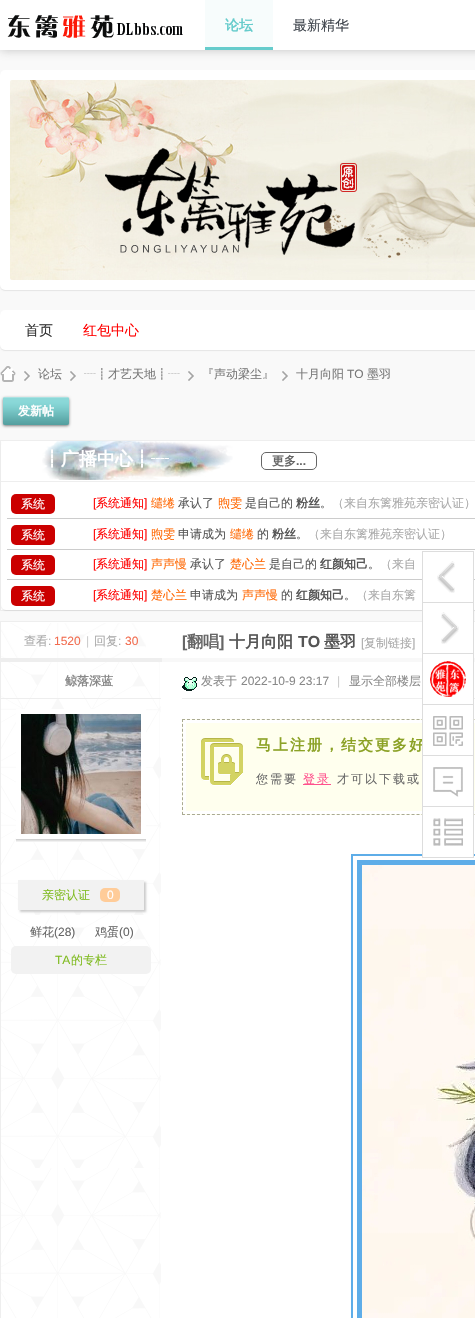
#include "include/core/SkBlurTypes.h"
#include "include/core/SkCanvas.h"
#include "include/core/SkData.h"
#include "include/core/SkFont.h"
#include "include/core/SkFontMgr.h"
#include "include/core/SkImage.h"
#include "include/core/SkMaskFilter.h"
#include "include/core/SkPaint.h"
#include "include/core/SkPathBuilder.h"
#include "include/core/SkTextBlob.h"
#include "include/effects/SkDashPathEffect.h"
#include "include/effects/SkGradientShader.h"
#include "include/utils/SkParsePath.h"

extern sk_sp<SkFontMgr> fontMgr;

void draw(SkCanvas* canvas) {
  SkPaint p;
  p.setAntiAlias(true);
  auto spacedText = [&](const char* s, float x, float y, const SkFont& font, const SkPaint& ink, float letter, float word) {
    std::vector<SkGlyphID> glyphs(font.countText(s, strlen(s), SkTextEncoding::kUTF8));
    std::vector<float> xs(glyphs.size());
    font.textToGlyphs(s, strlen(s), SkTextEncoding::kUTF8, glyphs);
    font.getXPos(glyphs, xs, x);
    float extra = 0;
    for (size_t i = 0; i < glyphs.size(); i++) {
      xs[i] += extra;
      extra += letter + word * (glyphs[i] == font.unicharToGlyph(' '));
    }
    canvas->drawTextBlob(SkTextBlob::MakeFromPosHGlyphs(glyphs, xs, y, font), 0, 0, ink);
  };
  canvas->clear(SkColorSetRGB(249, 249, 249));
  p.setColor(SkColorSetARGB(204, 180, 180, 180));
  p.setMaskFilter(SkMaskFilter::MakeBlur(kNormal_SkBlurStyle, 5));
  canvas->drawRect(SkRect::MakeLTRB(0, 0, 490, 50), p);
  p.setMaskFilter(nullptr);
  p.setColor(SK_ColorWHITE);
  canvas->drawRect(SkRect::MakeLTRB(0, 0, 475, 50), p);
  canvas->drawImageRect(SkImages::DeferredFromEncodedData(SkData::MakeFromFileName("images/1.png")), SkRect::MakeLTRB(7, 15, 183, 38), SkSamplingOptions());
  p.setColor(SkColorSetRGB(247, 252, 252));
  canvas->drawRect(SkRect::MakeLTRB(205, 0, 273, 47), p);
  p.setColor(SkColorSetRGB(102, 204, 204));
  canvas->drawRect(SkRect::MakeLTRB(205, 47, 273, 50), p);
  p.setColor(SkColorSetARGB(20, 0, 0, 0));
  p.setMaskFilter(SkMaskFilter::MakeBlur(kNormal_SkBlurStyle, 0.5f));
  canvas->drawRoundRect(SkRect::MakeLTRB(0, 71, 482, 291), 5, 5, p);
  p.setMaskFilter(nullptr);
  p.setColor(SK_ColorWHITE);
  canvas->drawRoundRect(SkRect::MakeLTRB(0, 70, 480, 290), 5, 5, p);
  canvas->drawImageRect(SkImages::DeferredFromEncodedData(SkData::MakeFromFileName("images/2.png")), SkRect::MakeLTRB(10, 80, 475, 280), SkSamplingOptions());
  canvas->drawImageRect(SkImages::DeferredFromEncodedData(SkData::MakeFromFileName("images/3.png")), SkRect::MakeLTRB(105, 148, 357, 255), SkSamplingOptions());
  p.setColor(SkColorSetARGB(20, 0, 0, 0));
  p.setMaskFilter(SkMaskFilter::MakeBlur(kNormal_SkBlurStyle, 0.5f));
  canvas->drawRoundRect(SkRect::MakeLTRB(0, 311, 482, 351), 5, 5, p);
  p.setMaskFilter(nullptr);
  p.setColor(SK_ColorWHITE);
  canvas->drawRoundRect(SkRect::MakeLTRB(0, 310, 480, 350), 5, 5, p);
  canvas->drawImageRect(SkImages::DeferredFromEncodedData(SkData::MakeFromFileName("images/4.png")), SkRect::MakeLTRB(0, 366, 16, 382), SkSamplingOptions());
  canvas->drawImageRect(SkImages::DeferredFromEncodedData(SkData::MakeFromFileName("images/5.png")), SkRect::MakeLTRB(24, 371, 30, 381), SkSamplingOptions());
  canvas->drawImageRect(SkImages::DeferredFromEncodedData(SkData::MakeFromFileName("images/5.png")), SkRect::MakeLTRB(70, 371, 76, 381), SkSamplingOptions());
  canvas->drawImageRect(SkImages::DeferredFromEncodedData(SkData::MakeFromFileName("images/5.png")), SkRect::MakeLTRB(188, 371, 194, 381), SkSamplingOptions());
  canvas->drawImageRect(SkImages::DeferredFromEncodedData(SkData::MakeFromFileName("images/5.png")), SkRect::MakeLTRB(282, 371, 288, 381), SkSamplingOptions());
  p.setColor(SkColorSetARGB(128, 0, 0, 0));
  p.setMaskFilter(SkMaskFilter::MakeBlur(kNormal_SkBlurStyle, 1.5f));
  canvas->drawRoundRect(SkRect::MakeLTRB(3, 398, 69, 426), 2, 2, p);
  p.setMaskFilter(nullptr);
  p.setColor(SkColorSetRGB(102, 204, 204));
  canvas->drawRoundRect(SkRect::MakeLTRB(3, 397, 69, 425), 2, 2, p);
  canvas->drawImageRect(SkImages::DeferredFromEncodedData(SkData::MakeFromFileName("images/6.png")), SkRect::MakeLTRB(3, 397, 69, 425), SkSamplingOptions());
  p.setColor(SK_ColorWHITE);
  canvas->drawRect(SkRect::MakeLTRB(1, 441, 6, 610), p);
  p.setColor(SkColorSetRGB(238, 238, 238));
  canvas->drawRect(SkRect::MakeLTRB(0, 610, 475, 611), p);
  canvas->drawRect(SkRect::MakeLTRB(0, 440, 1, 611), p);
  p.setColor(SkColorSetARGB(20, 0, 0, 0));
  p.setMaskFilter(SkMaskFilter::MakeBlur(kNormal_SkBlurStyle, 0.5f));
  canvas->drawRoundRect(SkRect::MakeLTRB(1, 441, 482, 611), 5, 5, p);
  p.setMaskFilter(nullptr);
  p.setColor(SK_ColorWHITE);
  canvas->drawRoundRect(SkRect::MakeLTRB(1, 440, 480, 610), 5, 5, p);
  p.setColor(SkColorSetRGB(238, 238, 238));
  canvas->drawRect(SkRect::MakeLTRB(1, 440, 475, 441), p);
  canvas->drawRect(SkRect::MakeLTRB(1, 481, 475, 482), p);
  canvas->drawImageRect(SkImages::DeferredFromEncodedData(SkData::MakeFromFileName("images/7.png")), SkRect::MakeLTRB(42, 441, 233, 480), SkSamplingOptions());
  p.setStyle(SkPaint::kStroke_Style);
  p.setStrokeWidth(1);
  p.setColor(SkColorSetRGB(102, 102, 102));
  canvas->drawRoundRect(SkRect::MakeLTRB(261.5f, 452.5f, 316.5f, 469.5f), 4.5f, 4.5f, p);
  p.setStyle(SkPaint::kFill_Style);
  p.setColor(SkColorSetRGB(204, 204, 204));
  canvas->drawRect(SkRect::MakeLTRB(7, 518, 475, 519), p);
  p.setColor(SkColorSetRGB(203, 0, 0));
  canvas->drawRoundRect(SkRect::MakeLTRB(11, 494, 55, 514), 5, 5, p);
  p.setColor(SkColorSetRGB(204, 204, 204));
  canvas->drawRect(SkRect::MakeLTRB(7, 549, 475, 550), p);
  p.setColor(SkColorSetRGB(203, 0, 0));
  canvas->drawRoundRect(SkRect::MakeLTRB(11, 525, 55, 545), 5, 5, p);
  p.setColor(SkColorSetRGB(204, 204, 204));
  canvas->drawRect(SkRect::MakeLTRB(7, 579, 475, 580), p);
  p.setColor(SkColorSetRGB(203, 0, 0));
  canvas->drawRoundRect(SkRect::MakeLTRB(11, 555, 55, 575), 5, 5, p);
  canvas->drawRoundRect(SkRect::MakeLTRB(11, 586, 55, 606), 5, 5, p);
  p.setColor(SK_ColorWHITE);
  canvas->drawRect(SkRect::MakeLTRB(162, 622, 475, 1318), p);
  p.setStyle(SkPaint::kStroke_Style);
  p.setColor(SkColorSetRGB(238, 238, 238));
  canvas->drawRect(SkRect::MakeLTRB(0.5f, 621.5f, 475.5f, 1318.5f), p);
  p.setStyle(SkPaint::kFill_Style);
  p.setColor(SK_ColorWHITE);
  canvas->drawRect(SkRect::MakeLTRB(1, 622, 162, 658), p);
  canvas->drawImageRect(SkImages::DeferredFromEncodedData(SkData::MakeFromFileName("images/8.png")), SkRect::MakeLTRB(1, 623, 146, 658), SkSamplingOptions());
  p.setColor(SkColorSetRGB(238, 238, 238));
  canvas->drawRect(SkRect::MakeLTRB(1, 658, 162, 662), p);
  p.setColor(SkColorSetRGB(248, 248, 248));
  canvas->drawRect(SkRect::MakeLTRB(162, 658, 475, 662), p);
  p.setColor(SK_ColorWHITE);
  canvas->drawRect(SkRect::MakeLTRB(161, 662, 162, 1318), p);
  canvas->drawImageRect(SkImages::DeferredFromEncodedData(SkData::MakeFromFileName("images/9.png")), SkRect::MakeLTRB(1, 662, 161, 1318), SkSamplingOptions());
  p.setColor(SkColorSetRGB(238, 238, 238));
  canvas->drawRect(SkRect::MakeLTRB(1, 698, 161, 699), p);
  p.setColor(SK_ColorWHITE);
  canvas->drawRect(SkRect::MakeLTRB(16, 709, 146, 839), p);
  canvas->drawImageRect(SkImages::DeferredFromEncodedData(SkData::MakeFromFileName("images/10.png")), SkRect::MakeLTRB(16, 714, 146, 842), SkSamplingOptions());
  p.setColor(SkColorSetRGB(204, 204, 204));
  p.setMaskFilter(SkMaskFilter::MakeBlur(kNormal_SkBlurStyle, 1));
  canvas->drawRect(SkRect::MakeLTRB(20, 882, 146, 912), p);
  p.setMaskFilter(nullptr);
  p.setColor(SkColorSetRGB(242, 242, 242));
  canvas->drawRect(SkRect::MakeLTRB(18, 880, 144, 910), p);
  p.setColor(SkColorSetRGB(255, 204, 153));
  canvas->drawRoundRect(SkRect::MakeLTRB(100, 888, 120, 902), 5, 5, p);
  p.setColor(SkColorSetRGB(242, 242, 242));
  canvas->drawRoundRect(SkRect::MakeLTRB(11, 946, 151, 974), 5, 5, p);
  p.setColor(SkColorSetRGB(238, 238, 238));
  canvas->drawRect(SkRect::MakeLTRB(182, 698, 475, 699), p);
  canvas->drawImageRect(SkImages::DeferredFromEncodedData(SkData::MakeFromFileName("images/11.png")), SkRect::MakeLTRB(182, 677, 197, 691), SkSamplingOptions());
  p.setColor(SkColorSetRGB(255, 255, 238));
  canvas->drawRect(SkRect::MakeLTRB(182, 719, 475, 815), p);
  p.setStyle(SkPaint::kStroke_Style);
  p.setColor(SkColorSetRGB(170, 170, 146));
  p.setPathEffect(SkDashPathEffect::Make({{3, 1.99f}}, 0));
  canvas->drawPath(SkPathBuilder().moveTo(182, 719.5f).lineTo(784, 719.5f).detach(), p);
  p.setPathEffect(nullptr);
  p.setPathEffect(SkDashPathEffect::Make({{3, 1.99f}}, 0));
  canvas->drawPath(SkPathBuilder().moveTo(182, 814.5f).lineTo(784, 814.5f).detach(), p);
  p.setPathEffect(nullptr);
  p.setPathEffect(SkDashPathEffect::Make({{3, 1.89f}}, 0));
  canvas->drawPath(SkPathBuilder().moveTo(182.5f, 719).lineTo(182.5f, 815).detach(), p);
  p.setPathEffect(nullptr);
  canvas->drawImageRect(SkImages::DeferredFromEncodedData(SkData::MakeFromFileName("images/12.png")), SkRect::MakeLTRB(201, 738, 243, 786), SkSamplingOptions());
  p.setStrokeWidth(3);
  p.setColor(SK_ColorWHITE);
  canvas->drawRect(SkRect::MakeLTRB(184.5f, 721.5f, 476.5f, 812.5f), p);
  p.setStyle(SkPaint::kFill_Style);
  p.setColor(SkColorSetRGB(255, 81, 141));
  canvas->drawRect(SkRect::MakeLTRB(303, 784, 331, 785), p);
  canvas->drawImageRect(SkImages::DeferredFromEncodedData(SkData::MakeFromFileName("images/13.png")), SkRect::MakeLTRB(351, 854, 475, 1318), SkSamplingOptions());
  p.setColor(SK_ColorWHITE);
  canvas->drawRect(SkRect::MakeLTRB(423, 579, 473, 580), p);
  canvas->drawImageRect(SkImages::DeferredFromEncodedData(SkData::MakeFromFileName("images/14.png")), SkRect::MakeLTRB(437, 561, 455, 593), SkSamplingOptions());
  p.setStyle(SkPaint::kStroke_Style);
  p.setStrokeWidth(1);
  p.setColor(SkColorSetRGB(221, 221, 221));
  canvas->drawRect(SkRect::MakeLTRB(422.5f, 551.5f, 473.5f, 602.5f), p);
  p.setStyle(SkPaint::kFill_Style);
  p.setColor(SK_ColorWHITE);
  canvas->drawRect(SkRect::MakeLTRB(423, 610, 473, 622), p);
  canvas->drawImageRect(SkImages::DeferredFromEncodedData(SkData::MakeFromFileName("images/15.png")), SkRect::MakeLTRB(441, 612, 459, 644), SkSamplingOptions());
  p.setStyle(SkPaint::kStroke_Style);
  p.setColor(SkColorSetRGB(221, 221, 221));
  canvas->drawRect(SkRect::MakeLTRB(422.5f, 602.5f, 473.5f, 653.5f), p);
  p.setStyle(SkPaint::kFill_Style);
  p.setColor(SK_ColorWHITE);
  canvas->drawRect(SkRect::MakeLTRB(423, 658, 473, 699), p);
  p.setStyle(SkPaint::kStroke_Style);
  p.setColor(SkColorSetRGB(221, 221, 221));
  canvas->drawRect(SkRect::MakeLTRB(422.5f, 653.5f, 473.5f, 704.5f), p);
  canvas->drawImageRect(SkImages::DeferredFromEncodedData(SkData::MakeFromFileName("images/16.png")), SkRect::MakeLTRB(430, 661, 466, 697), SkSamplingOptions());
  p.setStyle(SkPaint::kFill_Style);
  p.setColor(SK_ColorWHITE);
  canvas->drawRect(SkRect::MakeLTRB(423, 756, 473, 806), p);
  canvas->drawImageRect(SkImages::DeferredFromEncodedData(SkData::MakeFromFileName("images/18.png")), SkRect::MakeLTRB(433, 767, 463, 797), SkSamplingOptions());
  canvas->drawRect(SkRect::MakeLTRB(423, 807, 473, 856), p);
  canvas->drawImageRect(SkImages::DeferredFromEncodedData(SkData::MakeFromFileName("images/19.png")), SkRect::MakeLTRB(433, 818, 463, 846), SkSamplingOptions());
  SkFont font1(fontMgr->matchFamilyStyle("WenQuanYi Zen Hei", SkFontStyle::Bold()), 14);
  font1.setSubpixel(true);
  p.setColor(SkColorSetRGB(102, 204, 204));
  canvas->drawString("论坛", 225, 30, font1, p);
  SkFont font2(fontMgr->matchFamilyStyle("WenQuanYi Zen Hei", SkFontStyle(500, SkFontStyle::kNormal_Width, SkFontStyle::kUpright_Slant)), 14);
  font2.setSubpixel(true);
  p.setColor(SkColorSetRGB(61, 67, 75));
  canvas->drawString("最新精华", 293, 30, font2, p);
  p.setColor(SkColorSetRGB(51, 51, 51));
  canvas->drawString("首页", 25, 335, font2, p);
  p.setColor(SkColorSetRGB(255, 0, 0));
  canvas->drawString("红包中心", 83, 335, font2, p);
  SkFont font3(fontMgr->matchFamilyStyle("WenQuanYi Zen Hei", SkFontStyle(500, SkFontStyle::kNormal_Width, SkFontStyle::kUpright_Slant)), 12);
  font3.setSubpixel(true);
  p.setColor(SkColorSetRGB(119, 119, 119));
  canvas->drawString("论坛", 38, 378, font3, p);
  canvas->drawString("┈┋才艺天地┋┈", 84, 378, font3, p);
  canvas->drawString("『声动梁尘』", 202, 378, font3, p);
  canvas->drawString("十月向阳", 296, 378, font3, p);
  SkFont font4(fontMgr->matchFamilyStyle("Liberation Sans", SkFontStyle::Normal()), 12);
  font4.setSubpixel(true);
  canvas->drawString("TO", 347, 378, font4, p);
  canvas->drawString("墨羽", 367, 378, font3, p);
  SkFont font5(fontMgr->matchFamilyStyle("WenQuanYi Zen Hei", SkFontStyle::Bold()), 12);
  font5.setSubpixel(true);
  p.setColor(SK_ColorWHITE);
  canvas->drawString("发新帖", 18, 415, font5, p);
  SkFont font6(fontMgr->matchFamilyStyle("WenQuanYi Zen Hei", SkFontStyle::Bold()), 18);
  font6.setSubpixel(true);
  canvas->drawString("┋广播中心┋┈", 43, 465, font6, p);
  p.setColor(SkColorSetRGB(102, 102, 102));
  canvas->drawString("更多", 272, 465, font5, p);
  SkFont font7(fontMgr->matchFamilyStyle("Liberation Sans", SkFontStyle::Bold()), 12);
  font7.setSubpixel(true);
  canvas->drawString("...", 296, 465, font7, p);
  p.setColor(SK_ColorWHITE);
  canvas->drawString("系统", 21, 508, font3, p);
  p.setColor(SkColorSetRGB(255, 0, 0));
  canvas->drawString("[", 93, 507, font4, p);
  canvas->drawString("系统通知", 96, 507, font3, p);
  canvas->drawString("]", 144, 507, font4, p);
  p.setColor(SkColorSetRGB(255, 102, 0));
  canvas->drawString("缱绻", 151, 507, font3, p);
  p.setColor(SkColorSetRGB(85, 85, 85));
  canvas->drawString("承认了", 178, 507, font3, p);
  p.setColor(SkColorSetRGB(255, 102, 0));
  canvas->drawString("煦雯", 218, 507, font3, p);
  p.setColor(SkColorSetRGB(85, 85, 85));
  canvas->drawString("是自己的", 245, 507, font3, p);
  canvas->drawString("粉丝", 296, 507, font5, p);
  canvas->drawString("。", 320, 507, font3, p);
  p.setColor(SkColorSetRGB(170, 170, 170));
  canvas->drawString("（来自东篱雅苑亲密认证）", 332, 507, font3, p);
  p.setColor(SK_ColorWHITE);
  canvas->drawString("系统", 21, 539, font3, p);
  p.setColor(SkColorSetRGB(255, 0, 0));
  canvas->drawString("[", 93, 538, font4, p);
  canvas->drawString("系统通知", 96, 538, font3, p);
  canvas->drawString("]", 144, 538, font4, p);
  p.setColor(SkColorSetRGB(255, 102, 0));
  canvas->drawString("煦雯", 151, 538, font3, p);
  p.setColor(SkColorSetRGB(85, 85, 85));
  canvas->drawString("申请成为", 178, 538, font3, p);
  p.setColor(SkColorSetRGB(255, 102, 0));
  canvas->drawString("缱绻", 230, 538, font3, p);
  p.setColor(SkColorSetRGB(85, 85, 85));
  canvas->drawString("的", 257, 538, font3, p);
  canvas->drawString("粉丝", 272, 538, font5, p);
  canvas->drawString("。", 296, 538, font3, p);
  p.setColor(SkColorSetRGB(170, 170, 170));
  canvas->drawString("（来自东篱雅苑亲密认证）", 308, 538, font3, p);
  p.setColor(SK_ColorWHITE);
  canvas->drawString("系统", 21, 569, font3, p);
  p.setColor(SkColorSetRGB(255, 0, 0));
  canvas->drawString("[", 93, 568, font4, p);
  canvas->drawString("系统通知", 96, 568, font3, p);
  canvas->drawString("]", 144, 568, font4, p);
  p.setColor(SkColorSetRGB(255, 102, 0));
  canvas->drawString("声声慢", 151, 568, font3, p);
  p.setColor(SkColorSetRGB(85, 85, 85));
  canvas->drawString("承认了", 190, 568, font3, p);
  p.setColor(SkColorSetRGB(255, 102, 0));
  canvas->drawString("楚心兰", 230, 568, font3, p);
  p.setColor(SkColorSetRGB(85, 85, 85));
  canvas->drawString("是自己的", 269, 568, font3, p);
  canvas->drawString("红颜知己", 320, 568, font5, p);
  canvas->drawString("。", 368, 568, font3, p);
  p.setColor(SkColorSetRGB(170, 170, 170));
  canvas->drawString("（来自", 380, 568, font3, p);
  p.setColor(SK_ColorWHITE);
  canvas->drawString("系统", 21, 600, font3, p);
  p.setColor(SkColorSetRGB(255, 0, 0));
  canvas->drawString("[", 93, 599, font4, p);
  canvas->drawString("系统通知", 96, 599, font3, p);
  canvas->drawString("]", 144, 599, font4, p);
  p.setColor(SkColorSetRGB(255, 102, 0));
  canvas->drawString("楚心兰", 151, 599, font3, p);
  p.setColor(SkColorSetRGB(85, 85, 85));
  canvas->drawString("申请成为", 190, 599, font3, p);
  p.setColor(SkColorSetRGB(255, 102, 0));
  canvas->drawString("声声慢", 242, 599, font3, p);
  p.setColor(SkColorSetRGB(85, 85, 85));
  canvas->drawString("的", 281, 599, font3, p);
  canvas->drawString("红颜知己", 296, 599, font5, p);
  canvas->drawString("。", 344, 599, font3, p);
  p.setColor(SkColorSetRGB(170, 170, 170));
  canvas->drawString("（来自东篱", 356, 599, font3, p);
  canvas->drawString("查看", 24, 645, font3, p);
  canvas->drawString(":", 48, 645, font4, p);
  p.setColor(SkColorSetRGB(242, 108, 79));
  canvas->drawString("1520", 54, 645, font4, p);
  p.setColor(SkColorSetRGB(204, 204, 204));
  canvas->drawString("|", 86, 645, font4, p);
  p.setColor(SkColorSetRGB(170, 170, 170));
  canvas->drawString("回复", 94, 645, font3, p);
  canvas->drawString(":", 118, 645, font4, p);
  p.setColor(SkColorSetRGB(242, 108, 79));
  canvas->drawString("30", 125, 645, font4, p);
  SkFont font8(fontMgr->matchFamilyStyle("Liberation Sans", SkFontStyle::Bold()), 16);
  font8.setSubpixel(true);
  p.setColor(SkColorSetRGB(102, 102, 102));
  canvas->drawString("[", 182, 647, font8, p);
  SkFont font9(fontMgr->matchFamilyStyle("WenQuanYi Zen Hei", SkFontStyle::Bold()), 16);
  font9.setSubpixel(true);
  canvas->drawString("翻唱", 187, 647, font9, p);
  canvas->drawString("]", 219, 647, font8, p);
  p.setColor(SkColorSetRGB(85, 85, 85));
  canvas->drawString("十月向阳", 229, 647, font9, p);
  canvas->drawString("TO", 298, 647, font8, p);
  canvas->drawString("墨羽", 324, 647, font9, p);
  p.setColor(SkColorSetRGB(170, 170, 170));
  canvas->drawString("[", 361, 647, font4, p);
  canvas->drawString("复制链接", 364, 647, font3, p);
  canvas->drawString("]", 412, 647, font4, p);
  p.setColor(SkColorSetRGB(137, 137, 137));
  canvas->drawString("鲸落深蓝", 65, 685, font5, p);
  p.setColor(SkColorSetRGB(127, 187, 31));
  canvas->drawString("亲密认证", 42, 899, font3, p);
  p.setColor(SK_ColorWHITE);
  canvas->drawString("0", 107, 899, font4, p);
  p.setColor(SkColorSetRGB(102, 102, 102));
  canvas->drawString("鲜花", 30, 936, font3, p);
  canvas->drawString("(28)", 54, 936, font4, p);
  canvas->drawString("鸡蛋", 95, 936, font3, p);
  canvas->drawString("(0)", 119, 936, font4, p);
  p.setColor(SkColorSetRGB(127, 187, 31));
  canvas->drawString("TA", 55, 964, font4, p);
  canvas->drawString("的专栏", 71, 964, font3, p);
  p.setColor(SkColorSetRGB(137, 137, 137));
  canvas->drawString("发表于", 201, 685, font3, p);
  canvas->drawString("2022-10-9 23:17", 241, 685, font4, p);
  p.setColor(SkColorSetRGB(204, 204, 204));
  canvas->drawString("|", 337, 685, font4, p);
  p.setColor(SkColorSetRGB(137, 137, 137));
  canvas->drawString("显示全部楼层", 349, 685, font3, p);
  SkFont font10(fontMgr->matchFamilyStyle("WenQuanYi Zen Hei", SkFontStyle::Bold()), 15);
  font10.setSubpixel(true);
  p.setColor(SkColorSetRGB(140, 162, 38));
  spacedText("马上注册，结交更多好", 256, 750, font10, p, 2, 0);
  p.setColor(SkColorSetRGB(102, 102, 102));
  spacedText("您需要", 256, 783, font3, p, 2, 0);
  p.setColor(SkColorSetRGB(255, 81, 141));
  spacedText("登录", 303, 783, font3, p, 2, 0);
  p.setColor(SkColorSetRGB(102, 102, 102));
  spacedText("才可以下载或", 337, 783, font3, p, 2, 0);
  p.setColor(SK_ColorWHITE);
  canvas->drawRect(SkRect::MakeLTRB(423, 719, 473, 755), p);
  canvas->drawImageRect(SkImages::DeferredFromEncodedData(SkData::MakeFromFileName("images/17.png")), SkRect::MakeLTRB(433, 716, 463, 746), SkSamplingOptions());
  p.setStyle(SkPaint::kStroke_Style);
  p.setColor(SkColorSetRGB(221, 221, 221));
  canvas->drawRect(SkRect::MakeLTRB(422.5f, 704.5f, 473.5f, 755.5f), p);
  canvas->drawRect(SkRect::MakeLTRB(422.5f, 755.5f, 473.5f, 806.5f), p);
  canvas->drawRect(SkRect::MakeLTRB(422.5f, 806.5f, 473.5f, 857.5f), p);
}
